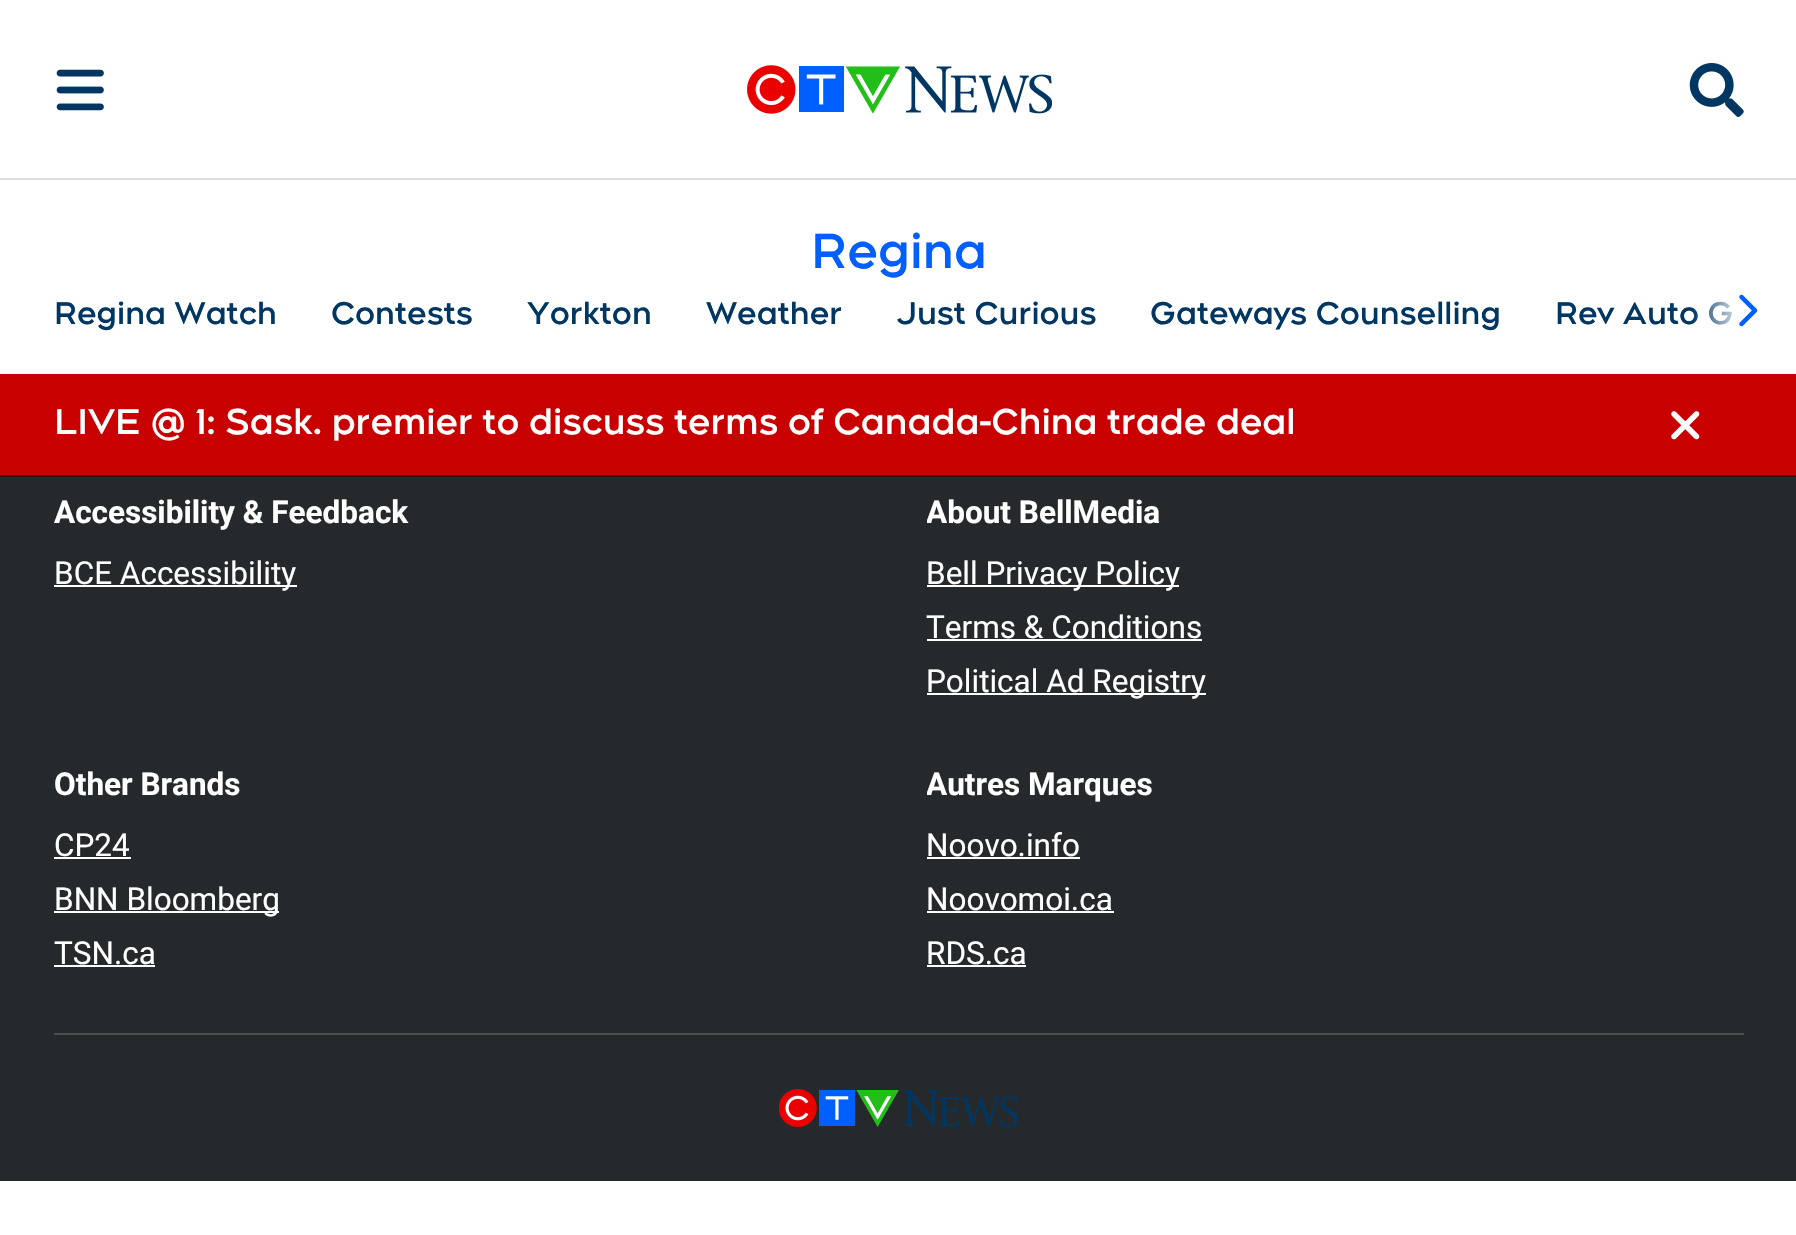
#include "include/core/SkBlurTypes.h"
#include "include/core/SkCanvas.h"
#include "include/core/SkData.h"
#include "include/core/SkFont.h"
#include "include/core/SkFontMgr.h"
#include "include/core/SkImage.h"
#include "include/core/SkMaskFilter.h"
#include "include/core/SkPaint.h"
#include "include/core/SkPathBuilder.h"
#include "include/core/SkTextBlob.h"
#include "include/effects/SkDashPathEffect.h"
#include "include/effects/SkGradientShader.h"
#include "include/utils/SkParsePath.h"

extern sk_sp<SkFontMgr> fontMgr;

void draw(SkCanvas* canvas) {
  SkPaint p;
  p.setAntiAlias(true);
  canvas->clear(SK_ColorWHITE);
  p.setColor(SkColorSetRGB(221, 221, 221));
  canvas->drawRect(SkRect::MakeLTRB(0, 178, 1796, 180), p);
  canvas->drawImageRect(SkImages::DeferredFromEncodedData(SkData::MakeFromFileName("images/1.png")), SkRect::MakeLTRB(56, 69, 104, 111), SkSamplingOptions());
  canvas->drawImageRect(SkImages::DeferredFromEncodedData(SkData::MakeFromFileName("images/2.png")), SkRect::MakeLTRB(747, 65, 1052, 114), SkSamplingOptions());
  canvas->drawImageRect(SkImages::DeferredFromEncodedData(SkData::MakeFromFileName("images/3.png")), SkRect::MakeLTRB(1689, 63, 1744, 117), SkSamplingOptions());
  p.setColor(SkColorSetRGB(200, 0, 0));
  canvas->drawRect(SkRect::MakeLTRB(0, 374, 1796, 475), p);
  p.setColor(SkColorSetRGB(55, 10, 0));
  canvas->drawRect(SkRect::MakeLTRB(0, 475, 1796, 477), p);
  canvas->drawImageRect(SkImages::DeferredFromEncodedData(SkData::MakeFromFileName("images/5.png")), SkRect::MakeLTRB(1671, 411, 1700, 440), SkSamplingOptions());
  p.setColor(SkColorSetRGB(38, 41, 43));
  canvas->drawRect(SkRect::MakeLTRB(0, 477, 1796, 1181), p);
  p.setColor(SK_ColorWHITE);
  canvas->drawRect(SkRect::MakeLTRB(54, 585, 297, 587), p);
  canvas->drawRect(SkRect::MakeLTRB(927, 585, 1179, 587), p);
  canvas->drawRect(SkRect::MakeLTRB(927, 639, 1202, 641), p);
  canvas->drawRect(SkRect::MakeLTRB(927, 693, 1206, 695), p);
  canvas->drawRect(SkRect::MakeLTRB(54, 857, 131, 859), p);
  canvas->drawRect(SkRect::MakeLTRB(54, 911, 279, 913), p);
  canvas->drawRect(SkRect::MakeLTRB(54, 965, 155, 967), p);
  canvas->drawRect(SkRect::MakeLTRB(927, 857, 1080, 859), p);
  canvas->drawRect(SkRect::MakeLTRB(927, 911, 1114, 913), p);
  canvas->drawRect(SkRect::MakeLTRB(927, 965, 1026, 967), p);
  p.setColor(SkColorSetRGB(79, 79, 79));
  canvas->drawRect(SkRect::MakeLTRB(54, 1033, 1744, 1035), p);
  canvas->drawImageRect(SkImages::DeferredFromEncodedData(SkData::MakeFromFileName("images/6.png")), SkRect::MakeLTRB(779, 1089, 1018, 1127), SkSamplingOptions());
  SkFont font1(fontMgr->matchFamilyStyle("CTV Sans", SkFontStyle::Bold()), 49.5f);
  font1.setSubpixel(true);
  p.setColor(SkColorSetRGB(0, 95, 255));
  canvas->drawString("Regina", 811, 268, font1, p);
  SkFont font2(fontMgr->matchFamilyStyle("CTV Sans", SkFontStyle::Bold()), 31.5f);
  font2.setSubpixel(true);
  p.setColor(SkColorSetRGB(0, 54, 98));
  canvas->drawString("Regina Watch", 54, 324, font2, p);
  canvas->drawString("Contests", 331, 324, font2, p);
  canvas->drawString("Yorkton", 527, 324, font2, p);
  canvas->drawString("Weather", 706, 324, font2, p);
  canvas->drawString("Just Curious", 896, 324, font2, p);
  canvas->drawString("Gateways Counselling", 1150, 324, font2, p);
  canvas->drawString("Rev Auto G", 1555, 324, font2, p);
  {
    const SkColor colors[] = {SK_ColorWHITE, SkColorSetARGB(0, 255, 255, 255)};
    const float stops[] = {0.5f, 1};
    const SkPoint ends[] = {{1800, 309}, {1692, 309}};
    p.setShader(SkGradientShader::MakeLinear(ends, colors, stops, 2, SkTileMode::kClamp));
    p.setAlpha(255);
  }
  canvas->drawRoundRect(SkRect::MakeLTRB(1692, 281, 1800, 338), 9, 9, p);
  canvas->drawImageRect(SkImages::DeferredFromEncodedData(SkData::MakeFromFileName("images/4.png")), SkRect::MakeLTRB(1739, 294, 1758, 327), SkSamplingOptions());
  SkFont font3(fontMgr->matchFamilyStyle("CTV Sans", SkFontStyle::Bold()), 36);
  font3.setSubpixel(true);
  p.setShader(nullptr);
  p.setColor(SK_ColorWHITE);
  canvas->drawString("LIVE @ 1: Sask. premier to discuss terms of Canada-China trade deal", 54, 434, font3, p);
  SkFont font4(fontMgr->matchFamilyStyle("Roboto", SkFontStyle::Bold()), 31.5f);
  font4.setSubpixel(true);
  canvas->drawString("Accessibility & Feedback", 54, 523, font4, p);
  SkFont font5(fontMgr->matchFamilyStyle("Roboto", SkFontStyle::Normal()), 31.5f);
  font5.setSubpixel(true);
  canvas->drawString("BCE Accessibility", 54, 584, font5, p);
  canvas->save();
  canvas->clipRect(SkRect::MakeLTRB(927, 488, 1744, 536));
  canvas->drawString("About BellMedia", 926, 523, font4, p);
  canvas->restore();
  canvas->drawString("Bell Privacy Policy", 926, 584, font5, p);
  canvas->drawString("Terms & Conditions", 926, 638, font5, p);
  canvas->drawString("Political Ad Registry", 926, 692, font5, p);
  canvas->drawString("Other Brands", 54, 795, font4, p);
  canvas->drawString("CP24", 54, 856, font5, p);
  canvas->drawString("BNN Bloomberg", 54, 910, font5, p);
  canvas->drawString("TSN.ca", 54, 964, font5, p);
  canvas->save();
  canvas->clipRect(SkRect::MakeLTRB(927, 761, 1744, 808));
  canvas->drawString("Autres Marques", 926, 795, font4, p);
  canvas->restore();
  canvas->drawString("Noovo.info", 926, 856, font5, p);
  canvas->drawString("Noovomoi.ca", 926, 910, font5, p);
  canvas->drawString("RDS.ca", 926, 964, font5, p);
}
